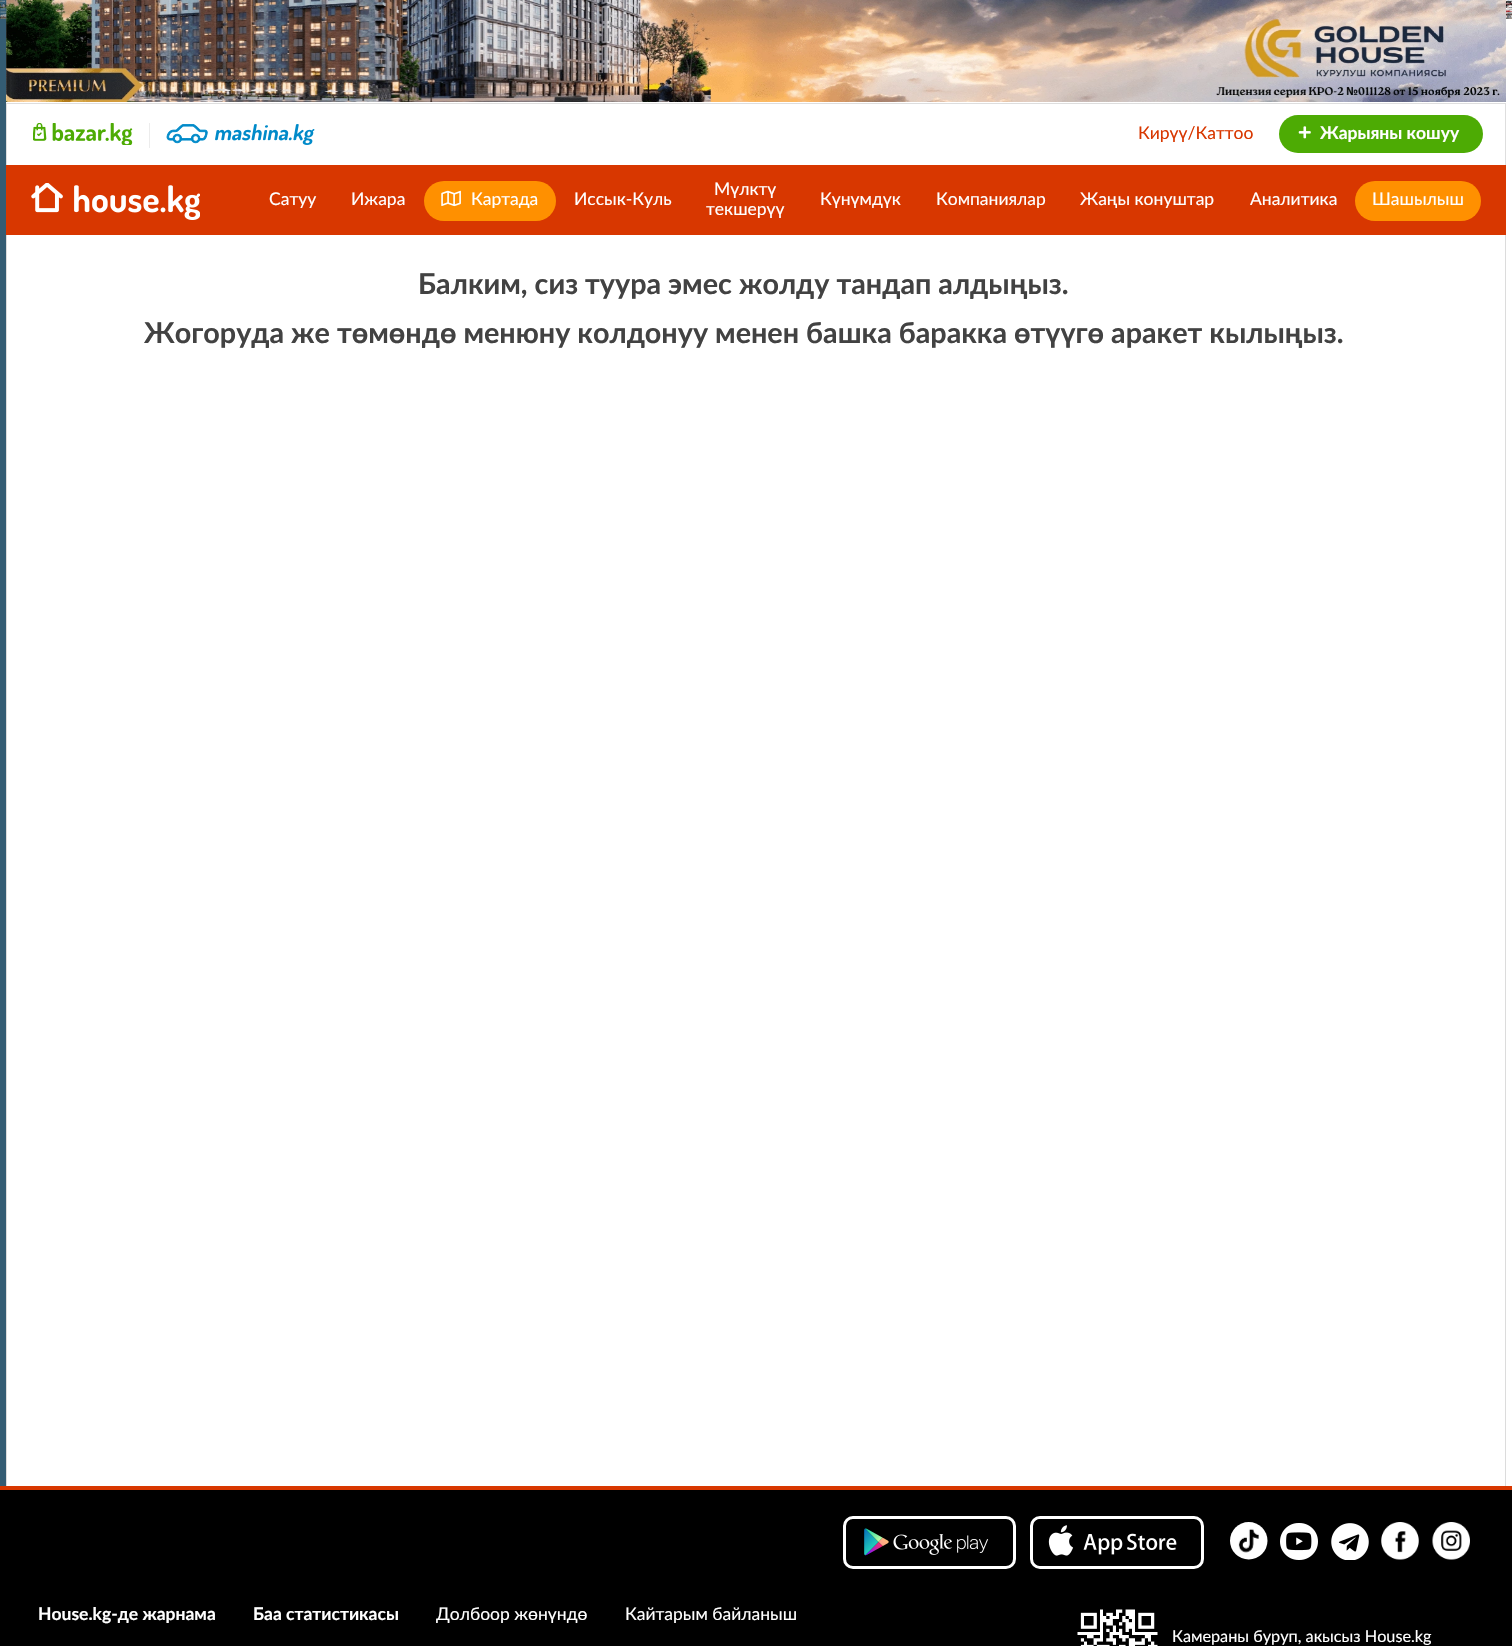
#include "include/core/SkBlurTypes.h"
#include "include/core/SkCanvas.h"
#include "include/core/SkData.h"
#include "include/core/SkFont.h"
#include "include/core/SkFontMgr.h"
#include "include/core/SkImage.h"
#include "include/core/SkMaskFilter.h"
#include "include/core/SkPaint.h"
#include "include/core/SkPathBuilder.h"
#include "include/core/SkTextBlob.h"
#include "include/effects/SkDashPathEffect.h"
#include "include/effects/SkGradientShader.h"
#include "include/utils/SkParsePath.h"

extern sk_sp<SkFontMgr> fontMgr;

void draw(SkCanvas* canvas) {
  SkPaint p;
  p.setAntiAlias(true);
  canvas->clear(SK_ColorWHITE);
  p.setColor(SkColorSetRGB(52, 92, 115));
  canvas->drawRect(SkRect::MakeLTRB(0, 18, 6, 1486), p);
  canvas->drawImageRect(SkImages::DeferredFromEncodedData(SkData::MakeFromFileName("images/2.png")), SkRect::MakeLTRB(6, 0, 1506, 102), SkSamplingOptions());
  canvas->drawImageRect(SkImages::DeferredFromEncodedData(SkData::MakeFromFileName("images/1.png")), SkRect::MakeLTRB(0, 0, 7, 19), SkSamplingOptions());
  canvas->drawImageRect(SkImages::DeferredFromEncodedData(SkData::MakeFromFileName("images/3.png")), SkRect::MakeLTRB(1506, 0, 1512, 19), SkSamplingOptions());
  p.setColor(SkColorSetRGB(222, 222, 222));
  canvas->drawRect(SkRect::MakeLTRB(6, 103, 1506, 104), p);
  canvas->drawRect(SkRect::MakeLTRB(1505, 103, 1506, 165), p);
  canvas->drawRect(SkRect::MakeLTRB(6, 103, 7, 165), p);
  canvas->drawImageRect(SkImages::DeferredFromEncodedData(SkData::MakeFromFileName("images/4.png")), SkRect::MakeLTRB(33, 123, 133, 145), SkSamplingOptions());
  p.setColor(SkColorSetRGB(236, 236, 236));
  canvas->drawRect(SkRect::MakeLTRB(149, 123, 150, 148), p);
  canvas->drawImageRect(SkImages::DeferredFromEncodedData(SkData::MakeFromFileName("images/5.png")), SkRect::MakeLTRB(166, 124, 315, 145), SkSamplingOptions());
  p.setColor(SkColorSetRGB(77, 171, 4));
  canvas->drawRoundRect(SkRect::MakeLTRB(1279, 115, 1483, 153), 19, 19, p);
  canvas->drawImageRect(SkImages::DeferredFromEncodedData(SkData::MakeFromFileName("images/6.png")), SkRect::MakeLTRB(1298, 126, 1311, 139), SkSamplingOptions());
  p.setColor(SkColorSetRGB(216, 55, 0));
  canvas->drawRect(SkRect::MakeLTRB(6, 165, 1506, 235), p);
  canvas->drawImageRect(SkImages::DeferredFromEncodedData(SkData::MakeFromFileName("images/7.png")), SkRect::MakeLTRB(31, 183, 200, 220), SkSamplingOptions());
  p.setColor(SkColorSetRGB(255, 144, 0));
  canvas->drawRoundRect(SkRect::MakeLTRB(424, 181, 556, 221), 20, 20, p);
  canvas->drawImageRect(SkImages::DeferredFromEncodedData(SkData::MakeFromFileName("images/8.png")), SkRect::MakeLTRB(441, 190, 461, 207), SkSamplingOptions());
  canvas->drawRoundRect(SkRect::MakeLTRB(1355, 181, 1481, 221), 20, 20, p);
  p.setColor(SkColorSetRGB(220, 220, 220));
  canvas->drawRect(SkRect::MakeLTRB(1505, 235, 1506, 1486), p);
  canvas->drawRect(SkRect::MakeLTRB(6, 235, 7, 1486), p);
  p.setColor(SK_ColorBLACK);
  canvas->drawRect(SkRect::MakeLTRB(0, 1490, 1512, 1646), p);
  p.setColor(SkColorSetRGB(216, 55, 0));
  canvas->drawRect(SkRect::MakeLTRB(0, 1486, 1512, 1490), p);
  p.setStyle(SkPaint::kStroke_Style);
  p.setStrokeWidth(3);
  p.setColor(SK_ColorWHITE);
  canvas->drawRoundRect(SkRect::MakeLTRB(844.5f, 1517.5f, 1014.5f, 1567.5f), 8.5f, 8.5f, p);
  canvas->drawImageRect(SkImages::DeferredFromEncodedData(SkData::MakeFromFileName("images/9.png")), SkRect::MakeLTRB(852, 1519, 989, 1556), SkSamplingOptions());
  canvas->drawRoundRect(SkRect::MakeLTRB(1031.5f, 1517.5f, 1202.5f, 1567.5f), 8.5f, 8.5f, p);
  canvas->drawImageRect(SkImages::DeferredFromEncodedData(SkData::MakeFromFileName("images/10.png")), SkRect::MakeLTRB(1034, 1519, 1177, 1566), SkSamplingOptions());
  canvas->drawImageRect(SkImages::DeferredFromEncodedData(SkData::MakeFromFileName("images/11.png")), SkRect::MakeLTRB(1230, 1522, 1268, 1560), SkSamplingOptions());
  canvas->drawImageRect(SkImages::DeferredFromEncodedData(SkData::MakeFromFileName("images/12.png")), SkRect::MakeLTRB(1280, 1523, 1318, 1560), SkSamplingOptions());
  canvas->drawImageRect(SkImages::DeferredFromEncodedData(SkData::MakeFromFileName("images/13.png")), SkRect::MakeLTRB(1331, 1523, 1369, 1560), SkSamplingOptions());
  canvas->drawImageRect(SkImages::DeferredFromEncodedData(SkData::MakeFromFileName("images/14.png")), SkRect::MakeLTRB(1381, 1522, 1419, 1560), SkSamplingOptions());
  canvas->drawImageRect(SkImages::DeferredFromEncodedData(SkData::MakeFromFileName("images/15.png")), SkRect::MakeLTRB(1432, 1522, 1470, 1560), SkSamplingOptions());
  canvas->drawImageRect(SkImages::DeferredFromEncodedData(SkData::MakeFromFileName("images/16.png")), SkRect::MakeLTRB(1077, 1609, 1158, 1646), SkSamplingOptions());
  SkFont font1(fontMgr->matchFamilyStyle("Lato", SkFontStyle::Normal()), 17.5f);
  font1.setSubpixel(true);
  p.setStyle(SkPaint::kFill_Style);
  p.setColor(SkColorSetRGB(216, 55, 0));
  canvas->drawString("Кирүү/Каттоо", 1138, 139, font1, p);
  SkFont font2(fontMgr->matchFamilyStyle("Lato", SkFontStyle::Bold()), 17.5f);
  font2.setSubpixel(true);
  p.setColor(SK_ColorWHITE);
  canvas->drawString("Жарыяны кошуу", 1320, 139, font2, p);
  canvas->drawString("Сатуу", 269, 205, font1, p);
  canvas->drawString("Ижара", 351, 205, font1, p);
  canvas->drawString("Картада", 471, 205, font1, p);
  canvas->drawString("Иссык-Куль", 574, 205, font1, p);
  canvas->drawString("Мүлктү", 714, 195, font1, p);
  canvas->drawString("текшерүү", 706, 215, font1, p);
  canvas->drawString("Күнүмдүк", 820, 205, font1, p);
  canvas->drawString("Компаниялар", 936, 205, font1, p);
  canvas->drawString("Жаңы конуштар", 1080, 205, font1, p);
  canvas->drawString("Аналитика", 1250, 205, font1, p);
  canvas->drawString("Шашылыш", 1372, 205, font1, p);
  SkFont font3(fontMgr->matchFamilyStyle("Lato", SkFontStyle::Bold()), 28.75f);
  font3.setSubpixel(true);
  p.setColor(SkColorSetRGB(66, 66, 66));
  canvas->drawString("Балким, сиз туура эмес жолду тандап алдыңыз.", 418, 294, font3, p);
  canvas->drawString("Жогоруда же төмөндө менюну колдонуу менен башка баракка өтүүгө аракет кылыңыз.", 144, 343, font3, p);
  p.setColor(SK_ColorWHITE);
  canvas->drawString("House.kg-де жарнама", 38, 1620, font2, p);
  canvas->drawString("Баа статистикасы", 253, 1620, font2, p);
  canvas->drawString("Долбоор жөнүндө", 436, 1620, font1, p);
  canvas->drawString("Кайтарым байланыш", 625, 1620, font1, p);
  SkFont font4(fontMgr->matchFamilyStyle("Lato", SkFontStyle::Normal()), 16.25f);
  font4.setSubpixel(true);
  canvas->drawString("Камераны буруп, акысыз House.kg", 1172, 1642, font4, p);
}
